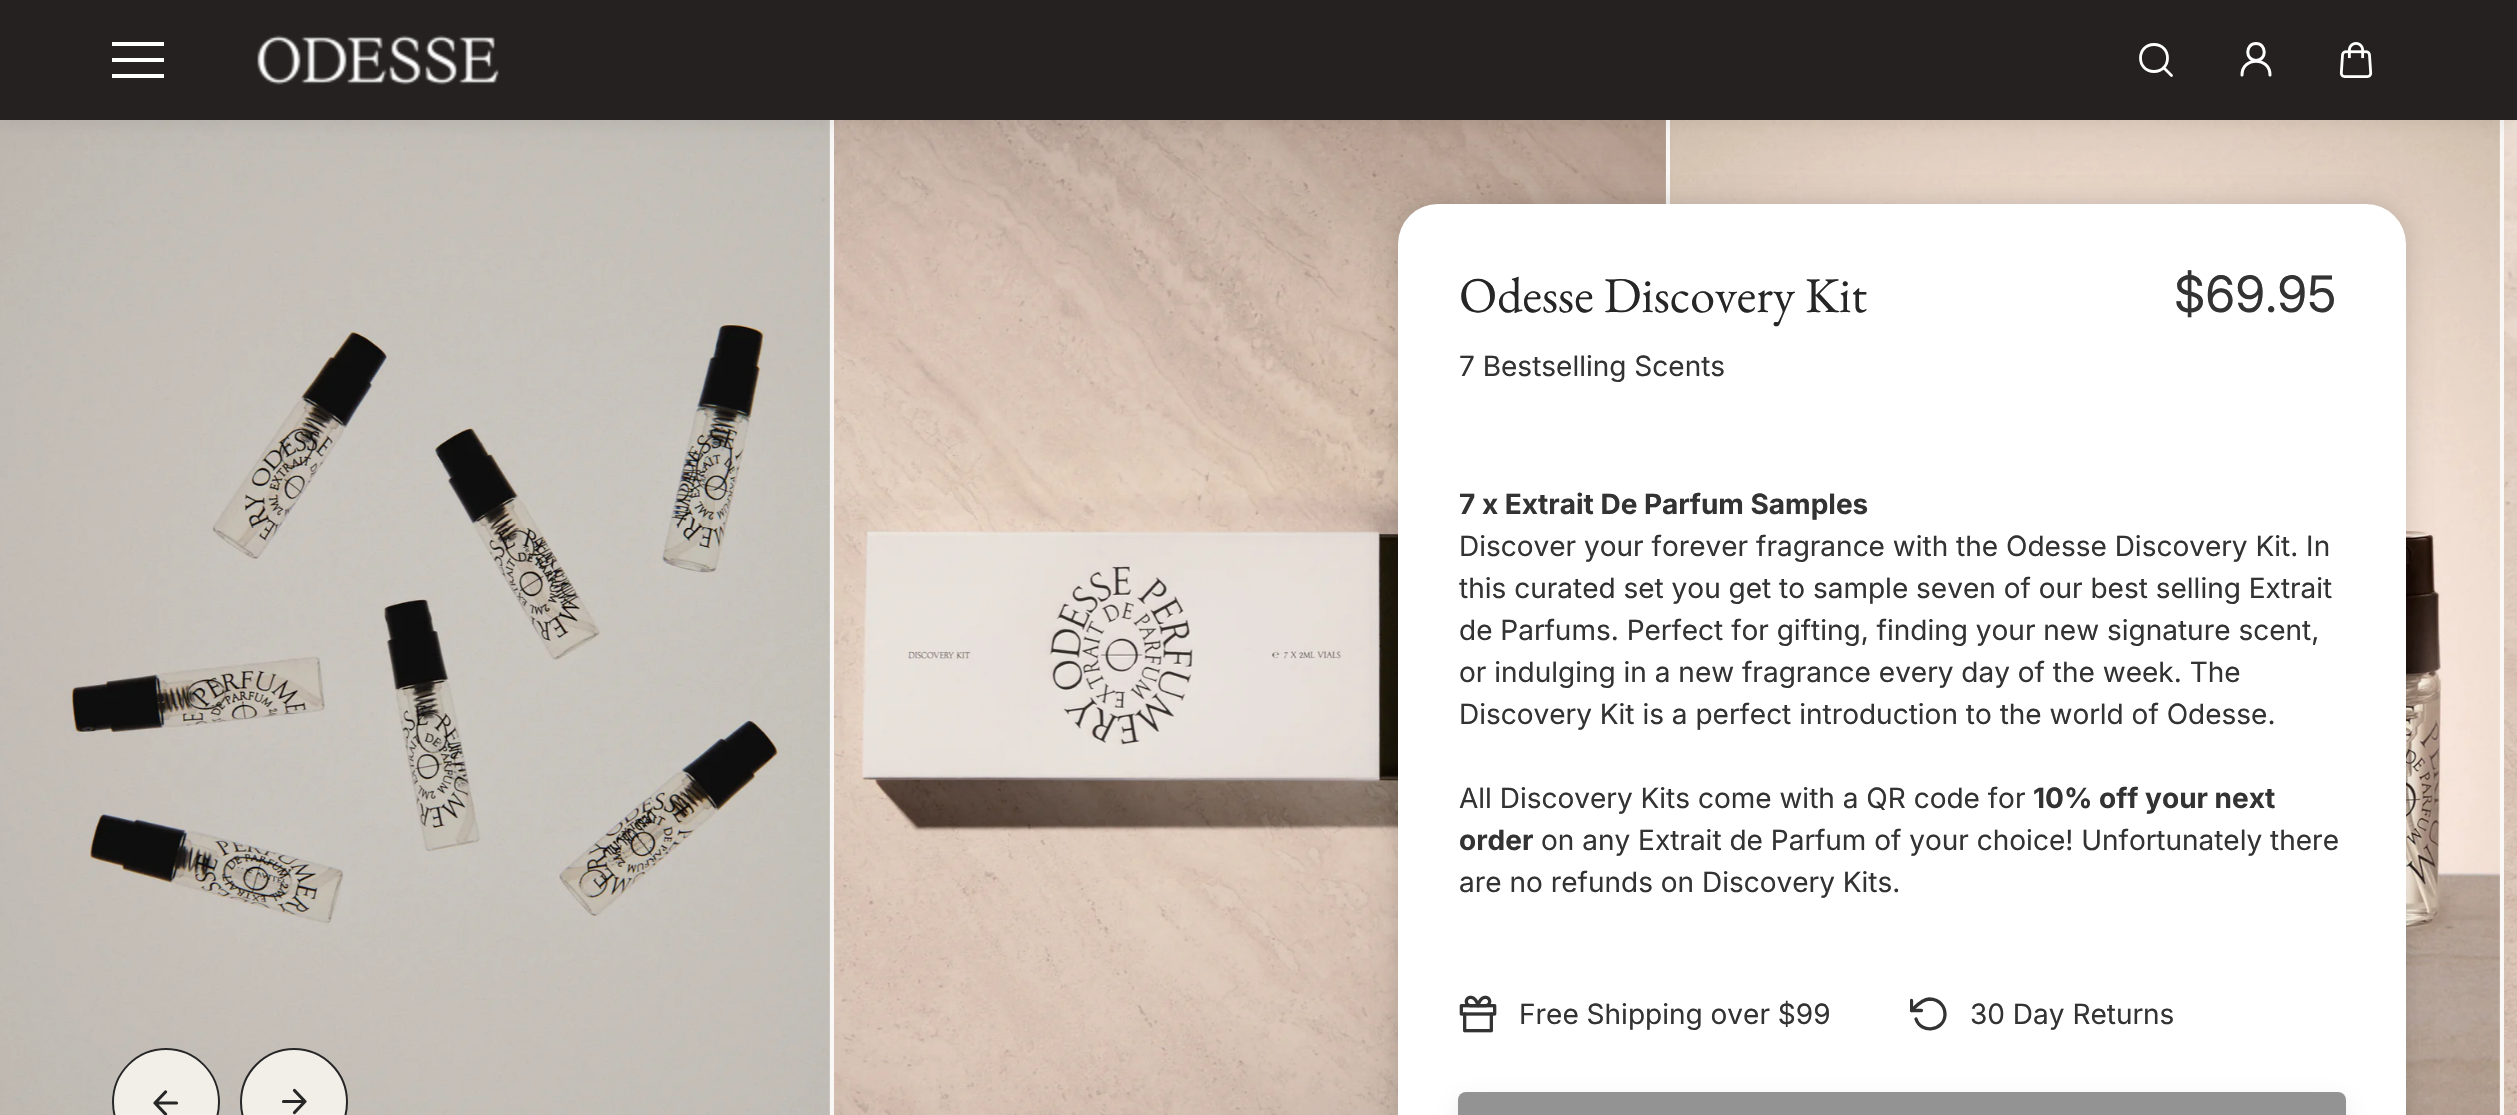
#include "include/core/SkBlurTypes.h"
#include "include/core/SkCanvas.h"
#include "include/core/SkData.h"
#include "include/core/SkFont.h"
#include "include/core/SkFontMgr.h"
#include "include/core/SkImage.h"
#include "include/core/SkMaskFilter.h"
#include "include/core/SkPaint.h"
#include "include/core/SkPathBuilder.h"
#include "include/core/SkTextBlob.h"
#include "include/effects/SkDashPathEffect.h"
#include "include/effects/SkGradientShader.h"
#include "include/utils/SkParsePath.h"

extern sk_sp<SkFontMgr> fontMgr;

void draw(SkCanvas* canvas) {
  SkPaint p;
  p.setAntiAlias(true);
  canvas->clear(SkColorSetRGB(249, 248, 246));
  canvas->drawImageRect(SkImages::DeferredFromEncodedData(SkData::MakeFromFileName("images/3.png")), SkRect::MakeLTRB(0, 120, 830, 1115), SkSamplingOptions());
  canvas->drawImageRect(SkImages::DeferredFromEncodedData(SkData::MakeFromFileName("images/4.png")), SkRect::MakeLTRB(834, 120, 1666, 1115), SkSamplingOptions());
  canvas->drawImageRect(SkImages::DeferredFromEncodedData(SkData::MakeFromFileName("images/5.png")), SkRect::MakeLTRB(1670, 120, 2500, 1115), SkSamplingOptions());
  canvas->drawImageRect(SkImages::DeferredFromEncodedData(SkData::MakeFromFileName("images/6.png")), SkRect::MakeLTRB(2504, 120, 2517, 1115), SkSamplingOptions());
  p.setColor(SkColorSetARGB(13, 0, 0, 0));
  p.setMaskFilter(SkMaskFilter::MakeBlur(kNormal_SkBlurStyle, 8));
  canvas->drawRect(SkRect::MakeLTRB(0, 6, 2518, 126), p);
  p.setMaskFilter(nullptr);
  p.setColor(SkColorSetRGB(38, 33, 33));
  canvas->drawRect(SkRect::MakeLTRB(0, 0, 2517, 120), p);
  p.setColor(SK_ColorWHITE);
  canvas->drawRect(SkRect::MakeLTRB(112, 42, 164, 46), p);
  canvas->drawRect(SkRect::MakeLTRB(112, 58, 164, 62), p);
  canvas->drawRect(SkRect::MakeLTRB(112, 74, 164, 78), p);
  canvas->drawImageRect(SkImages::DeferredFromEncodedData(SkData::MakeFromFileName("images/1.png")), SkRect::MakeLTRB(257, 35, 499, 85), SkSamplingOptions());
  p.setStyle(SkPaint::kStroke_Style);
  p.setStrokeWidth(2.8f);
  p.setStrokeCap(SkPaint::kRound_Cap);
  p.setStrokeJoin(SkPaint::kRound_Join);
  canvas->drawPath(SkPathBuilder().moveTo(2154, 71.5f).cubicTo(2172, 71.5f, 2172, 44.5f, 2154, 44.5f).cubicTo(2136, 44.5f, 2136, 71.5f, 2154, 71.5f).close().moveTo(2163.5f, 67.5f).lineTo(2171.5f, 75.5f).detach(), p);
  p.setStrokeWidth(3);
  p.setStrokeCap(SkPaint::kButt_Cap);
  p.setStrokeJoin(SkPaint::kMiter_Join);
  canvas->drawPath(SkPathBuilder().moveTo(2256, 60.5f).cubicTo(2267, 60.5f, 2267, 43.5f, 2256, 43.5f).cubicTo(2245, 43.5f, 2245, 60.5f, 2256, 60.5f).close().detach(), p);
  p.setStrokeCap(SkPaint::kRound_Cap);
  p.setStrokeJoin(SkPaint::kRound_Join);
  canvas->drawPath(SkPathBuilder().moveTo(2270, 75).cubicTo(2270, 56.5f, 2242, 56.5f, 2242, 75).detach(), p);
  canvas->drawImageRect(SkImages::DeferredFromEncodedData(SkData::MakeFromFileName("images/2.png")), SkRect::MakeLTRB(2339, 42, 2373, 78), SkSamplingOptions());
  p.setStyle(SkPaint::kFill_Style);
  p.setColor(SkColorSetRGB(242, 238, 232));
  canvas->drawPath(SkPathBuilder().moveTo(166, 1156).cubicTo(136, 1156, 112, 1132, 112, 1102).cubicTo(112, 1072, 136, 1048, 166, 1048).cubicTo(196, 1048, 220, 1072, 220, 1102).cubicTo(220, 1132, 196, 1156, 166, 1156).close().detach(), p);
  p.setStyle(SkPaint::kStroke_Style);
  p.setStrokeWidth(2);
  p.setStrokeCap(SkPaint::kButt_Cap);
  p.setStrokeJoin(SkPaint::kMiter_Join);
  p.setColor(SkColorSetRGB(38, 38, 38));
  canvas->drawPath(SkPathBuilder().moveTo(166, 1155).cubicTo(136.5f, 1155, 113, 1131.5f, 113, 1102).cubicTo(113, 1073, 136.5f, 1049, 166, 1049).cubicTo(195.5f, 1049, 219, 1073, 219, 1102).cubicTo(219, 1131.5f, 195.5f, 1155, 166, 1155).close().detach(), p);
  p.setStrokeWidth(3.2f);
  p.setStrokeCap(SkPaint::kRound_Cap);
  p.setStrokeJoin(SkPaint::kRound_Join);
  canvas->drawPath(SkPathBuilder().moveTo(176.5f, 1103).lineTo(155, 1103).moveTo(165.5f, 1114).lineTo(155, 1103).lineTo(165.5f, 1092).detach(), p);
  p.setStyle(SkPaint::kFill_Style);
  p.setColor(SkColorSetRGB(242, 238, 232));
  canvas->drawCircle(294, 1102, 53, p);
  p.setStyle(SkPaint::kStroke_Style);
  p.setStrokeWidth(2);
  p.setStrokeCap(SkPaint::kButt_Cap);
  p.setStrokeJoin(SkPaint::kMiter_Join);
  p.setColor(SkColorSetRGB(38, 38, 38));
  canvas->drawCircle(294, 1102, 53, p);
  p.setStrokeWidth(3.2f);
  p.setStrokeCap(SkPaint::kRound_Cap);
  p.setStrokeJoin(SkPaint::kRound_Join);
  canvas->drawPath(SkPathBuilder().moveTo(283.5f, 1101.5f).lineTo(305, 1101.5f).moveTo(294.5f, 1090.5f).lineTo(305, 1101.5f).lineTo(294.5f, 1112.5f).detach(), p);
  p.setStyle(SkPaint::kFill_Style);
  p.setColor(SkColorSetARGB(15, 0, 0, 0));
  p.setMaskFilter(SkMaskFilter::MakeBlur(kNormal_SkBlurStyle, 12));
  canvas->drawRoundRect(SkRect::MakeLTRB(1398, 204, 2406, 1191), 40, 40, p);
  p.setMaskFilter(nullptr);
  p.setColor(SkColorSetARGB(26, 0, 0, 0));
  p.setMaskFilter(SkMaskFilter::MakeBlur(kNormal_SkBlurStyle, 12));
  canvas->drawRoundRect(SkRect::MakeLTRB(1398, 204, 2406, 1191), 40, 40, p);
  p.setMaskFilter(nullptr);
  p.setColor(SK_ColorWHITE);
  canvas->drawRoundRect(SkRect::MakeLTRB(1398, 204, 2406, 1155), 40, 40, p);
  canvas->drawImageRect(SkImages::DeferredFromEncodedData(SkData::MakeFromFileName("images/7.png")), SkRect::MakeLTRB(1459, 995, 1497, 1033), SkSamplingOptions());
  canvas->save();
  canvas->clipRect(SkRect::MakeLTRB(1910, 994, 1950, 1034));
  p.setStyle(SkPaint::kStroke_Style);
  p.setStrokeWidth(3.3f);
  p.setColor(SkColorSetRGB(51, 51, 51));
  canvas->drawPath(SkPathBuilder().moveTo(1911.5f, 1000.5f).lineTo(1911.5f, 1010.5f).lineTo(1921.5f, 1010.5f).detach(), p);
  canvas->restore();
  canvas->drawPath(SkPathBuilder().moveTo(1916, 1019).cubicTo(1921, 1034, 1944, 1031, 1945, 1015).cubicTo(1945, 1011.5f, 1944, 1007.5f, 1942, 1005).cubicTo(1939, 1001, 1934, 999, 1929, 999).cubicTo(1921.5f, 999.5f, 1916.5f, 1006, 1911.5f, 1010.5f).detach(), p);
  p.setStyle(SkPaint::kFill_Style);
  p.setColor(SkColorSetARGB(38, 128, 128, 128));
  p.setMaskFilter(SkMaskFilter::MakeBlur(kNormal_SkBlurStyle, 12));
  canvas->drawRoundRect(SkRect::MakeLTRB(1458, 1100, 2346, 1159), 8, 8, p);
  p.setMaskFilter(nullptr);
  p.setColor(SkColorSetRGB(147, 147, 147));
  canvas->drawRoundRect(SkRect::MakeLTRB(1458, 1092, 2346, 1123), 8, 8, p);
  SkFont font1(fontMgr->matchFamilyStyle("EB Garamond", SkFontStyle::Normal()), 50);
  font1.setSubpixel(true);
  p.setColor(SkColorSetRGB(38, 38, 38));
  canvas->drawString("Odesse Discovery Kit", 1459, 312, font1, p);
  SkFont font2(fontMgr->matchFamilyStyle("Inter", SkFontStyle::Normal()), 50);
  font2.setSubpixel(true);
  p.setColor(SkColorSetRGB(51, 51, 51));
  canvas->drawString("$69.95", 2174, 312, font2, p);
  SkFont font3(fontMgr->matchFamilyStyle("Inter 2", SkFontStyle::Normal()), 28);
  font3.setSubpixel(true);
  canvas->drawString("7 Bestselling Scents", 1459, 376, font3, p);
  SkFont font4(fontMgr->matchFamilyStyle("Inter", SkFontStyle::Bold()), 28);
  font4.setSubpixel(true);
  canvas->drawString("7 x Extrait De Parfum Samples", 1459, 514, font4, p);
  canvas->drawString("Discover your forever fragrance with the Odesse Discovery Kit. In", 1459, 556, font3, p);
  canvas->drawString("this curated set you get to sample seven of our best selling Extrait", 1459, 598, font3, p);
  canvas->drawString("de Parfums. Perfect for gifting, finding your new signature scent,", 1459, 640, font3, p);
  canvas->drawString("or indulging in a new fragrance every day of the week. The", 1459, 682, font3, p);
  canvas->drawString("Discovery Kit is a perfect introduction to the world of Odesse.", 1459, 724, font3, p);
  canvas->drawString("All Discovery Kits come with a QR code for", 1459, 808, font3, p);
  canvas->drawString("10% off your next", 2033, 808, font4, p);
  canvas->drawString("order", 1459, 850, font4, p);
  canvas->drawString("on any Extrait de Parfum of your choice! Unfortunately there", 1541, 850, font3, p);
  canvas->drawString("are no refunds on Discovery Kits.", 1459, 892, font3, p);
  canvas->drawString("Free Shipping over $99", 1519, 1024, font3, p);
  canvas->drawString("30 Day Returns", 1970, 1024, font3, p);
}
